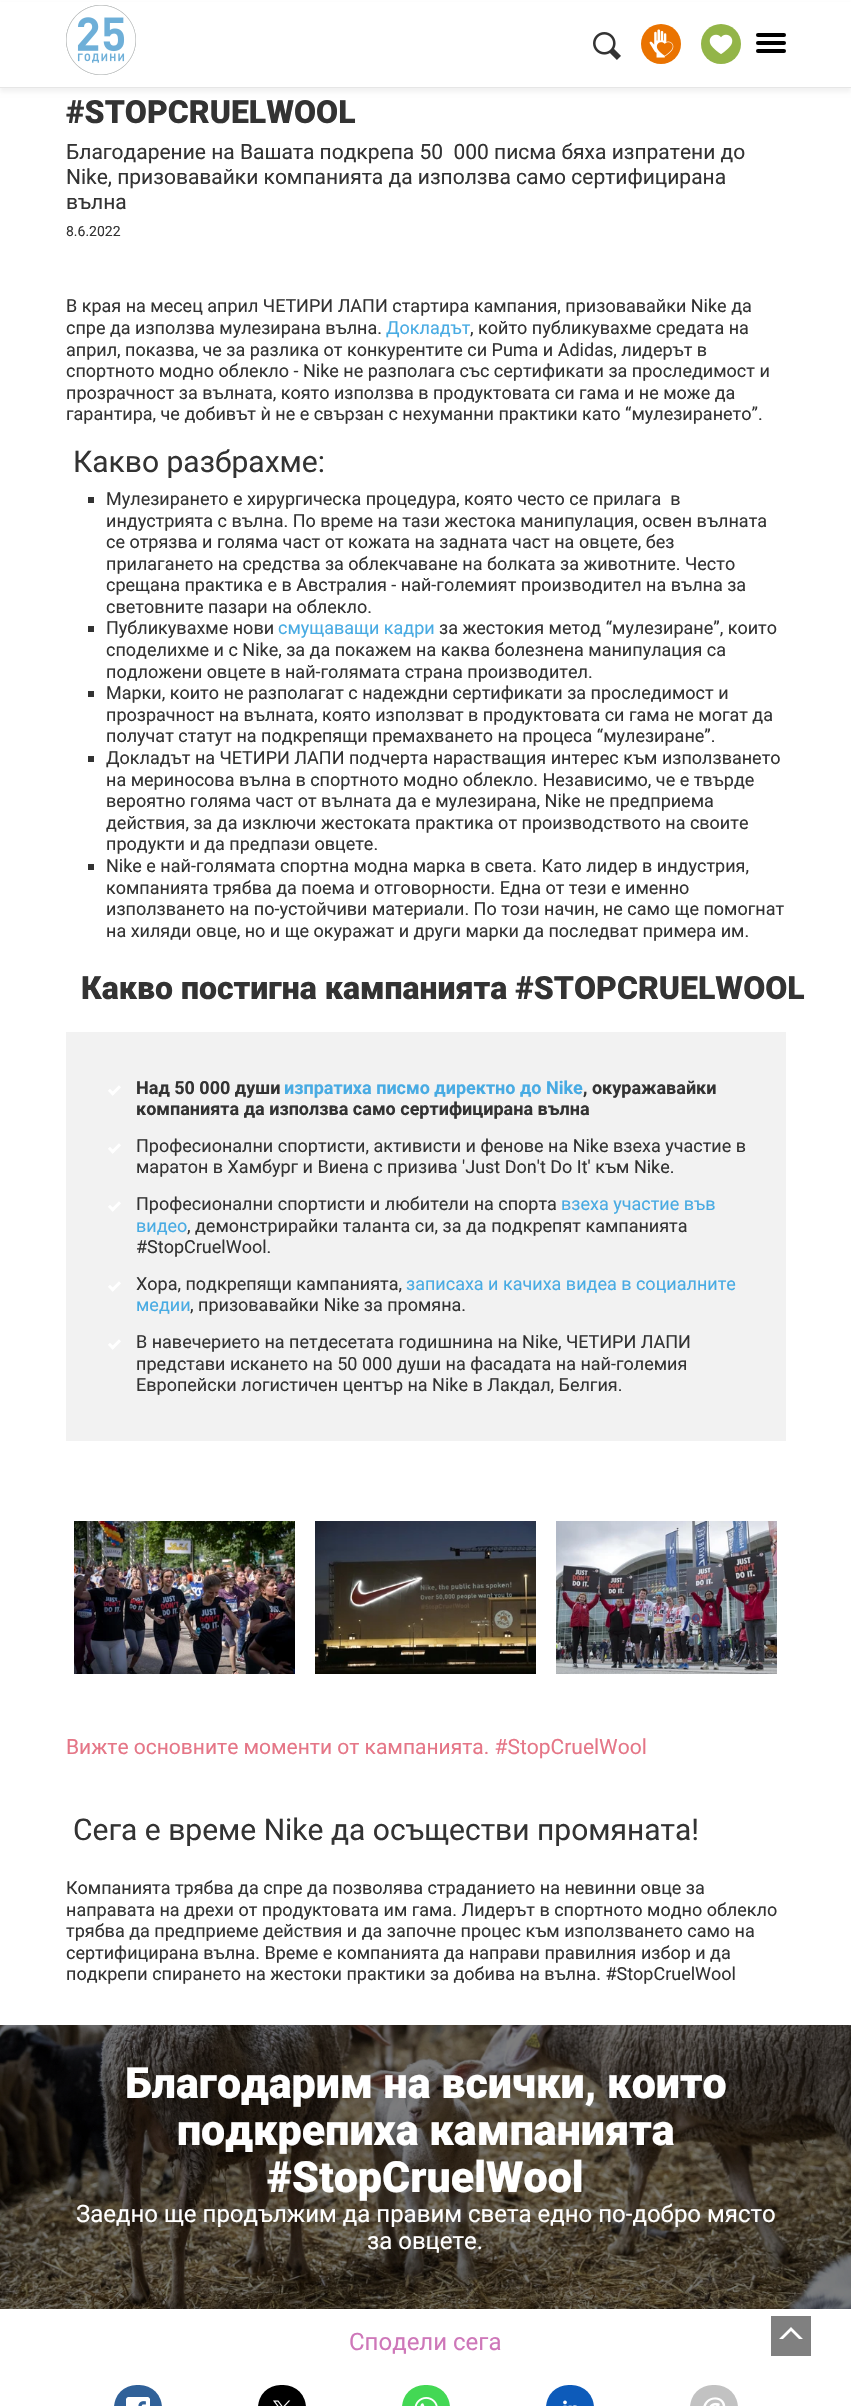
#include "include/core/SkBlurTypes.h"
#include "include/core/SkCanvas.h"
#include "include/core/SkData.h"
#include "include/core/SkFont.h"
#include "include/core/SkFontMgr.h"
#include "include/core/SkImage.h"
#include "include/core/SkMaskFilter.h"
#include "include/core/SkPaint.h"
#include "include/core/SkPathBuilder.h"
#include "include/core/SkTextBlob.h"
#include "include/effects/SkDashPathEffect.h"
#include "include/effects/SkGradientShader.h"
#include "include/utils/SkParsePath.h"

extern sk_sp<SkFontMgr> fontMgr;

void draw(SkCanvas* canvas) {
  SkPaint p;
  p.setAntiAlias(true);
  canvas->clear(SK_ColorWHITE);
  p.setColor(SkColorSetARGB(13, 0, 0, 0));
  p.setMaskFilter(SkMaskFilter::MakeBlur(kNormal_SkBlurStyle, 2));
  canvas->drawRect(SkRect::MakeLTRB(0, 4, 851, 92), p);
  p.setMaskFilter(nullptr);
  p.setColor(SK_ColorWHITE);
  canvas->drawRect(SkRect::MakeLTRB(0, 2, 851, 87), p);
  p.setColor(SkColorSetRGB(230, 230, 230));
  canvas->drawRect(SkRect::MakeLTRB(0, 87, 851, 88), p);
  canvas->drawImageRect(SkImages::DeferredFromEncodedData(SkData::MakeFromFileName("images/1.png")), SkRect::MakeLTRB(66, 5, 136, 75), SkSamplingOptions());
  canvas->drawImageRect(SkImages::DeferredFromEncodedData(SkData::MakeFromFileName("images/2.png")), SkRect::MakeLTRB(66, 5, 136, 75), SkSamplingOptions());
  canvas->drawImageRect(SkImages::DeferredFromEncodedData(SkData::MakeFromFileName("images/3.png")), SkRect::MakeLTRB(593, 32, 621, 60), SkSamplingOptions());
  p.setColor(SkColorSetRGB(234, 115, 0));
  canvas->drawCircle(661, 44, 20, p);
  canvas->drawImageRect(SkImages::DeferredFromEncodedData(SkData::MakeFromFileName("images/4.png")), SkRect::MakeLTRB(649, 29, 674, 58), SkSamplingOptions());
  p.setColor(SkColorSetRGB(147, 181, 72));
  canvas->drawCircle(721, 44, 20, p);
  canvas->drawImageRect(SkImages::DeferredFromEncodedData(SkData::MakeFromFileName("images/5.png")), SkRect::MakeLTRB(709, 34, 733, 54), SkSamplingOptions());
  p.setColor(SK_ColorBLACK);
  canvas->drawRoundRect(SkRect::MakeLTRB(756, 33, 786, 37), 2, 2, p);
  canvas->drawRoundRect(SkRect::MakeLTRB(756, 41, 786, 45), 2, 2, p);
  canvas->drawRoundRect(SkRect::MakeLTRB(756, 49, 786, 53), 2, 2, p);
  p.setColor(SkColorSetRGB(51, 51, 51));
  canvas->drawRect(SkRect::MakeLTRB(88, 497, 94, 503), p);
  canvas->drawRect(SkRect::MakeLTRB(88, 626, 94, 632), p);
  canvas->drawRect(SkRect::MakeLTRB(88, 691, 94, 697), p);
  canvas->drawRect(SkRect::MakeLTRB(88, 756, 94, 762), p);
  canvas->drawRect(SkRect::MakeLTRB(88, 864, 94, 870), p);
  p.setColor(SkColorSetRGB(242, 242, 242));
  canvas->drawRect(SkRect::MakeLTRB(66, 1032, 786, 1441), p);
  canvas->drawImageRect(SkImages::DeferredFromEncodedData(SkData::MakeFromFileName("images/6.png")), SkRect::MakeLTRB(108, 1085, 121, 1096), SkSamplingOptions());
  canvas->drawImageRect(SkImages::DeferredFromEncodedData(SkData::MakeFromFileName("images/6.png")), SkRect::MakeLTRB(108, 1143, 121, 1154), SkSamplingOptions());
  canvas->drawImageRect(SkImages::DeferredFromEncodedData(SkData::MakeFromFileName("images/6.png")), SkRect::MakeLTRB(108, 1201, 121, 1212), SkSamplingOptions());
  canvas->drawImageRect(SkImages::DeferredFromEncodedData(SkData::MakeFromFileName("images/6.png")), SkRect::MakeLTRB(108, 1281, 121, 1292), SkSamplingOptions());
  canvas->drawImageRect(SkImages::DeferredFromEncodedData(SkData::MakeFromFileName("images/6.png")), SkRect::MakeLTRB(108, 1339, 121, 1350), SkSamplingOptions());
  canvas->drawImageRect(SkImages::DeferredFromEncodedData(SkData::MakeFromFileName("images/7.png")), SkRect::MakeLTRB(74, 1521, 295, 1674), SkSamplingOptions());
  canvas->drawImageRect(SkImages::DeferredFromEncodedData(SkData::MakeFromFileName("images/8.png")), SkRect::MakeLTRB(315, 1521, 536, 1674), SkSamplingOptions());
  canvas->drawImageRect(SkImages::DeferredFromEncodedData(SkData::MakeFromFileName("images/9.png")), SkRect::MakeLTRB(556, 1521, 777, 1674), SkSamplingOptions());
  canvas->drawImageRect(SkImages::DeferredFromEncodedData(SkData::MakeFromFileName("images/10.png")), SkRect::MakeLTRB(0, 2025, 851, 2309), SkSamplingOptions());
  p.setColor(SkColorSetRGB(48, 97, 153));
  canvas->drawRoundRect(SkRect::MakeLTRB(114, 2385, 162, 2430), 24, 24, p);
  canvas->drawImageRect(SkImages::DeferredFromEncodedData(SkData::MakeFromFileName("images/11.png")), SkRect::MakeLTRB(126, 2397, 150, 2406), SkSamplingOptions());
  p.setColor(SK_ColorBLACK);
  canvas->drawRoundRect(SkRect::MakeLTRB(258, 2385, 306, 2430), 24, 24, p);
  canvas->drawImageRect(SkImages::DeferredFromEncodedData(SkData::MakeFromFileName("images/12.png")), SkRect::MakeLTRB(273, 2400, 291, 2406), SkSamplingOptions());
  p.setColor(SkColorSetRGB(67, 216, 84));
  canvas->drawRoundRect(SkRect::MakeLTRB(402, 2385, 450, 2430), 24, 24, p);
  canvas->drawImageRect(SkImages::DeferredFromEncodedData(SkData::MakeFromFileName("images/13.png")), SkRect::MakeLTRB(414, 2397, 438, 2406), SkSamplingOptions());
  p.setColor(SkColorSetRGB(13, 91, 186));
  canvas->drawRoundRect(SkRect::MakeLTRB(546, 2385, 594, 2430), 24, 24, p);
  canvas->drawImageRect(SkImages::DeferredFromEncodedData(SkData::MakeFromFileName("images/14.png")), SkRect::MakeLTRB(563, 2400, 577, 2406), SkSamplingOptions());
  p.setColor(SkColorSetRGB(194, 194, 194));
  canvas->drawRoundRect(SkRect::MakeLTRB(690, 2385, 738, 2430), 24, 24, p);
  canvas->drawImageRect(SkImages::DeferredFromEncodedData(SkData::MakeFromFileName("images/15.png")), SkRect::MakeLTRB(703, 2397, 726, 2406), SkSamplingOptions());
  p.setColor(SkColorSetRGB(128, 128, 128));
  canvas->drawRect(SkRect::MakeLTRB(771, 2316, 811, 2356), p);
  p.setColor(SK_ColorWHITE);
  canvas->drawPath(SkPathBuilder().moveTo(791, 2327).lineTo(803, 2339).lineTo(799, 2339).lineTo(791, 2331).lineTo(783, 2339).lineTo(779, 2339).close().detach(), p);
  SkFont font1(fontMgr->matchFamilyStyle("Roboto", SkFontStyle(900, SkFontStyle::kNormal_Width, SkFontStyle::kUpright_Slant)), 32);
  font1.setSubpixel(true);
  p.setColor(SkColorSetRGB(51, 51, 51));
  canvas->drawString("#STOPCRUELWOOL", 66, 123, font1, p);
  SkFont font2(fontMgr->matchFamilyStyle("Roboto", SkFontStyle::Normal()), 21);
  font2.setSubpixel(true);
  canvas->drawString("Благодарение на Вашата подкрепа 50  000 писма бяха изпратени до", 66, 159, font2, p);
  canvas->drawString("Nike, призовавайки компанията да използва само сертифицирана", 66, 184, font2, p);
  canvas->drawString("вълна", 66, 209, font2, p);
  SkFont font3(fontMgr->matchFamilyStyle("Roboto", SkFontStyle::Normal()), 14);
  font3.setSubpixel(true);
  canvas->drawString("8.6.2022", 66, 236, font3, p);
  SkFont font4(fontMgr->matchFamilyStyle("Roboto", SkFontStyle::Normal()), 18);
  font4.setSubpixel(true);
  canvas->drawString("В края на месец април ЧЕТИРИ ЛАПИ стартира кампания, призовавайки Nike да", 66, 312, font4, p);
  canvas->drawString("спре да използва мулезирана вълна.", 66, 334, font4, p);
  p.setColor(SkColorSetRGB(72, 171, 227));
  canvas->drawString("Докладът", 386, 334, font4, p);
  p.setColor(SkColorSetRGB(51, 51, 51));
  canvas->drawString(", който публикувахме средата на", 470, 334, font4, p);
  canvas->drawString("април, показва, че за разлика от конкурентите си Puma и Adidas, лидерът в", 66, 356, font4, p);
  canvas->drawString("спортното модно облекло - Nike не разполага със сертификати за проследимост и", 66, 377, font4, p);
  canvas->drawString("прозрачност за вълната, която използва в продуктовата си гама и не може да", 66, 399, font4, p);
  canvas->drawString("гарантира, че добивът ѝ не е свързан с нехуманни практики като “мулезирането”.", 66, 420, font4, p);
  SkFont font5(fontMgr->matchFamilyStyle("Roboto", SkFontStyle::Normal()), 30);
  font5.setSubpixel(true);
  canvas->drawString("Какво разбрахме:", 73, 472, font5, p);
  canvas->drawString("Мулезирането е хирургическа процедура, която често се прилага  в", 106, 505, font4, p);
  canvas->drawString("индустрията с вълна. По време на тази жестока манипулация, освен вълната", 106, 527, font4, p);
  canvas->drawString("се отрязва и голяма част от кожата на задната част на овцете, без", 106, 548, font4, p);
  canvas->drawString("прилагането на средства за облекчаване на болката за животните. Често", 106, 570, font4, p);
  canvas->drawString("срещана практика е в Австралия - най-големият производител на вълна за", 106, 591, font4, p);
  canvas->drawString("световните пазари на облекло.", 106, 613, font4, p);
  canvas->drawString("Публикувахме нови", 106, 634, font4, p);
  p.setColor(SkColorSetRGB(72, 171, 227));
  canvas->drawString("смущаващи кадри", 278, 634, font4, p);
  p.setColor(SkColorSetRGB(51, 51, 51));
  canvas->drawString("за жестокия метод “мулезиране”, които", 439, 634, font4, p);
  canvas->drawString("споделихме и с Nike, за да покажем на каква болезнена манипулация са", 106, 656, font4, p);
  canvas->drawString("подложени овцете в най-голямата страна производител.", 106, 678, font4, p);
  canvas->drawString("Марки, които не разполагат с надеждни сертификати за проследимост и", 106, 699, font4, p);
  canvas->drawString("прозрачност на вълната, която използват в продуктовата си гама не могат да", 106, 721, font4, p);
  canvas->drawString("получат статут на подкрепящи премахването на процеса “мулезиране”.", 106, 742, font4, p);
  canvas->drawString("Докладът на ЧЕТИРИ ЛАПИ подчерта нарастващия интерес към използването", 106, 764, font4, p);
  canvas->drawString("на мериносова вълна в спортното модно облекло. Независимо, че е твърде", 106, 786, font4, p);
  canvas->drawString("вероятно голяма част от вълната да е мулезирана, Nike не предприема", 106, 807, font4, p);
  canvas->drawString("действия, за да изключи жестоката практика от производството на своите", 106, 829, font4, p);
  canvas->drawString("продукти и да предпази овцете.", 106, 850, font4, p);
  canvas->drawString("Nike е най-голямата спортна модна марка в света. Като лидер в индустрия,", 106, 872, font4, p);
  canvas->drawString("компанията трябва да поема и отговорности. Една от тези е именно", 106, 894, font4, p);
  canvas->drawString("използването на по-устойчиви материали. По този начин, не само ще помогнат", 106, 915, font4, p);
  canvas->drawString("на хиляди овце, но и ще окуражат и други марки да последват примера им.", 106, 937, font4, p);
  canvas->drawString("Какво постигна кампанията #STOPCRUELWOOL", 81, 999, font1, p);
  SkFont font6(fontMgr->matchFamilyStyle("Roboto", SkFontStyle::Bold()), 18);
  font6.setSubpixel(true);
  canvas->drawString("Над 50 000 души", 136, 1094, font6, p);
  p.setColor(SkColorSetRGB(72, 171, 227));
  canvas->drawString("изпратиха писмо директно до Nike", 284, 1094, font6, p);
  p.setColor(SkColorSetRGB(51, 51, 51));
  canvas->drawString(", окуражавайки", 583, 1094, font6, p);
  canvas->drawString("компанията да използва само сертифицирана вълна", 136, 1115, font6, p);
  canvas->drawString("Професионални спортисти, активисти и фенове на Nike взеха участие в", 136, 1152, font4, p);
  canvas->drawString("маратон в Хамбург и Виена с призива 'Just Don't Do It' към Nike.", 136, 1173, font4, p);
  canvas->drawString("Професионални спортисти и любители на спорта", 136, 1210, font4, p);
  p.setColor(SkColorSetRGB(72, 171, 227));
  canvas->drawString("взеха участие във", 561, 1210, font4, p);
  canvas->drawString("видео", 136, 1232, font4, p);
  p.setColor(SkColorSetRGB(51, 51, 51));
  canvas->drawString(", демонстрирайки таланта си, за да подкрепят кампанията", 187, 1232, font4, p);
  canvas->drawString("#StopCruelWool.", 136, 1253, font4, p);
  canvas->drawString("Хора, подкрепящи кампанията,", 136, 1290, font4, p);
  p.setColor(SkColorSetRGB(72, 171, 227));
  canvas->drawString("записаха и качиха видеа в социалните", 406, 1290, font4, p);
  canvas->drawString("медии", 136, 1311, font4, p);
  p.setColor(SkColorSetRGB(51, 51, 51));
  canvas->drawString(", призовавайки Nike за промяна.", 190, 1311, font4, p);
  canvas->drawString("В навечерието на петдесетата годишнина на Nike, ЧЕТИРИ ЛАПИ", 136, 1348, font4, p);
  canvas->drawString("представи искането на 50 000 души на фасадата на най-големия", 136, 1370, font4, p);
  canvas->drawString("Европейски логистичен център на Nike в Лакдал, Белгия.", 136, 1391, font4, p);
  p.setColor(SkColorSetRGB(229, 118, 135));
  canvas->drawString("Вижте основните моменти от кампанията. #StopCruelWool", 66, 1754, font2, p);
  p.setColor(SkColorSetRGB(51, 51, 51));
  canvas->drawString("Сега е време Nike да осъществи промяната!", 73, 1840, font5, p);
  canvas->drawString("Компанията трябва да спре да позволява страданието на невинни овце за", 66, 1894, font4, p);
  canvas->drawString("направата на дрехи от продуктовата им гама. Лидерът в спортното модно облекло", 66, 1916, font4, p);
  canvas->drawString("трябва да предприеме действия и да започне процес към използването само на", 66, 1937, font4, p);
  canvas->drawString("сертифицирана вълна. Време е компанията да направи правилния избор и да", 66, 1959, font4, p);
  canvas->drawString("подкрепи спирането на жестоки практики за добива на вълна. #StopCruelWool", 66, 1980, font4, p);
  SkFont font7(fontMgr->matchFamilyStyle("Roboto", SkFontStyle(900, SkFontStyle::kNormal_Width, SkFontStyle::kUpright_Slant)), 43);
  font7.setSubpixel(true);
  p.setColor(SK_ColorWHITE);
  canvas->drawString("Благодарим на всички, които", 125, 2098, font7, p);
  canvas->drawString("подкрепиха кампанията", 177, 2145, font7, p);
  canvas->drawString("#StopCruelWool", 267, 2192, font7, p);
  SkFont font8(fontMgr->matchFamilyStyle("Roboto", SkFontStyle::Normal()), 24);
  font8.setSubpixel(true);
  canvas->drawString("Заедно ще продължим да правим света едно по-добро място", 76, 2222, font8, p);
  canvas->drawString("за овцете.", 367, 2249, font8, p);
  p.setColor(SkColorSetRGB(206, 119, 185));
  canvas->drawString("Сподели сега", 349, 2350, font8, p);
}
